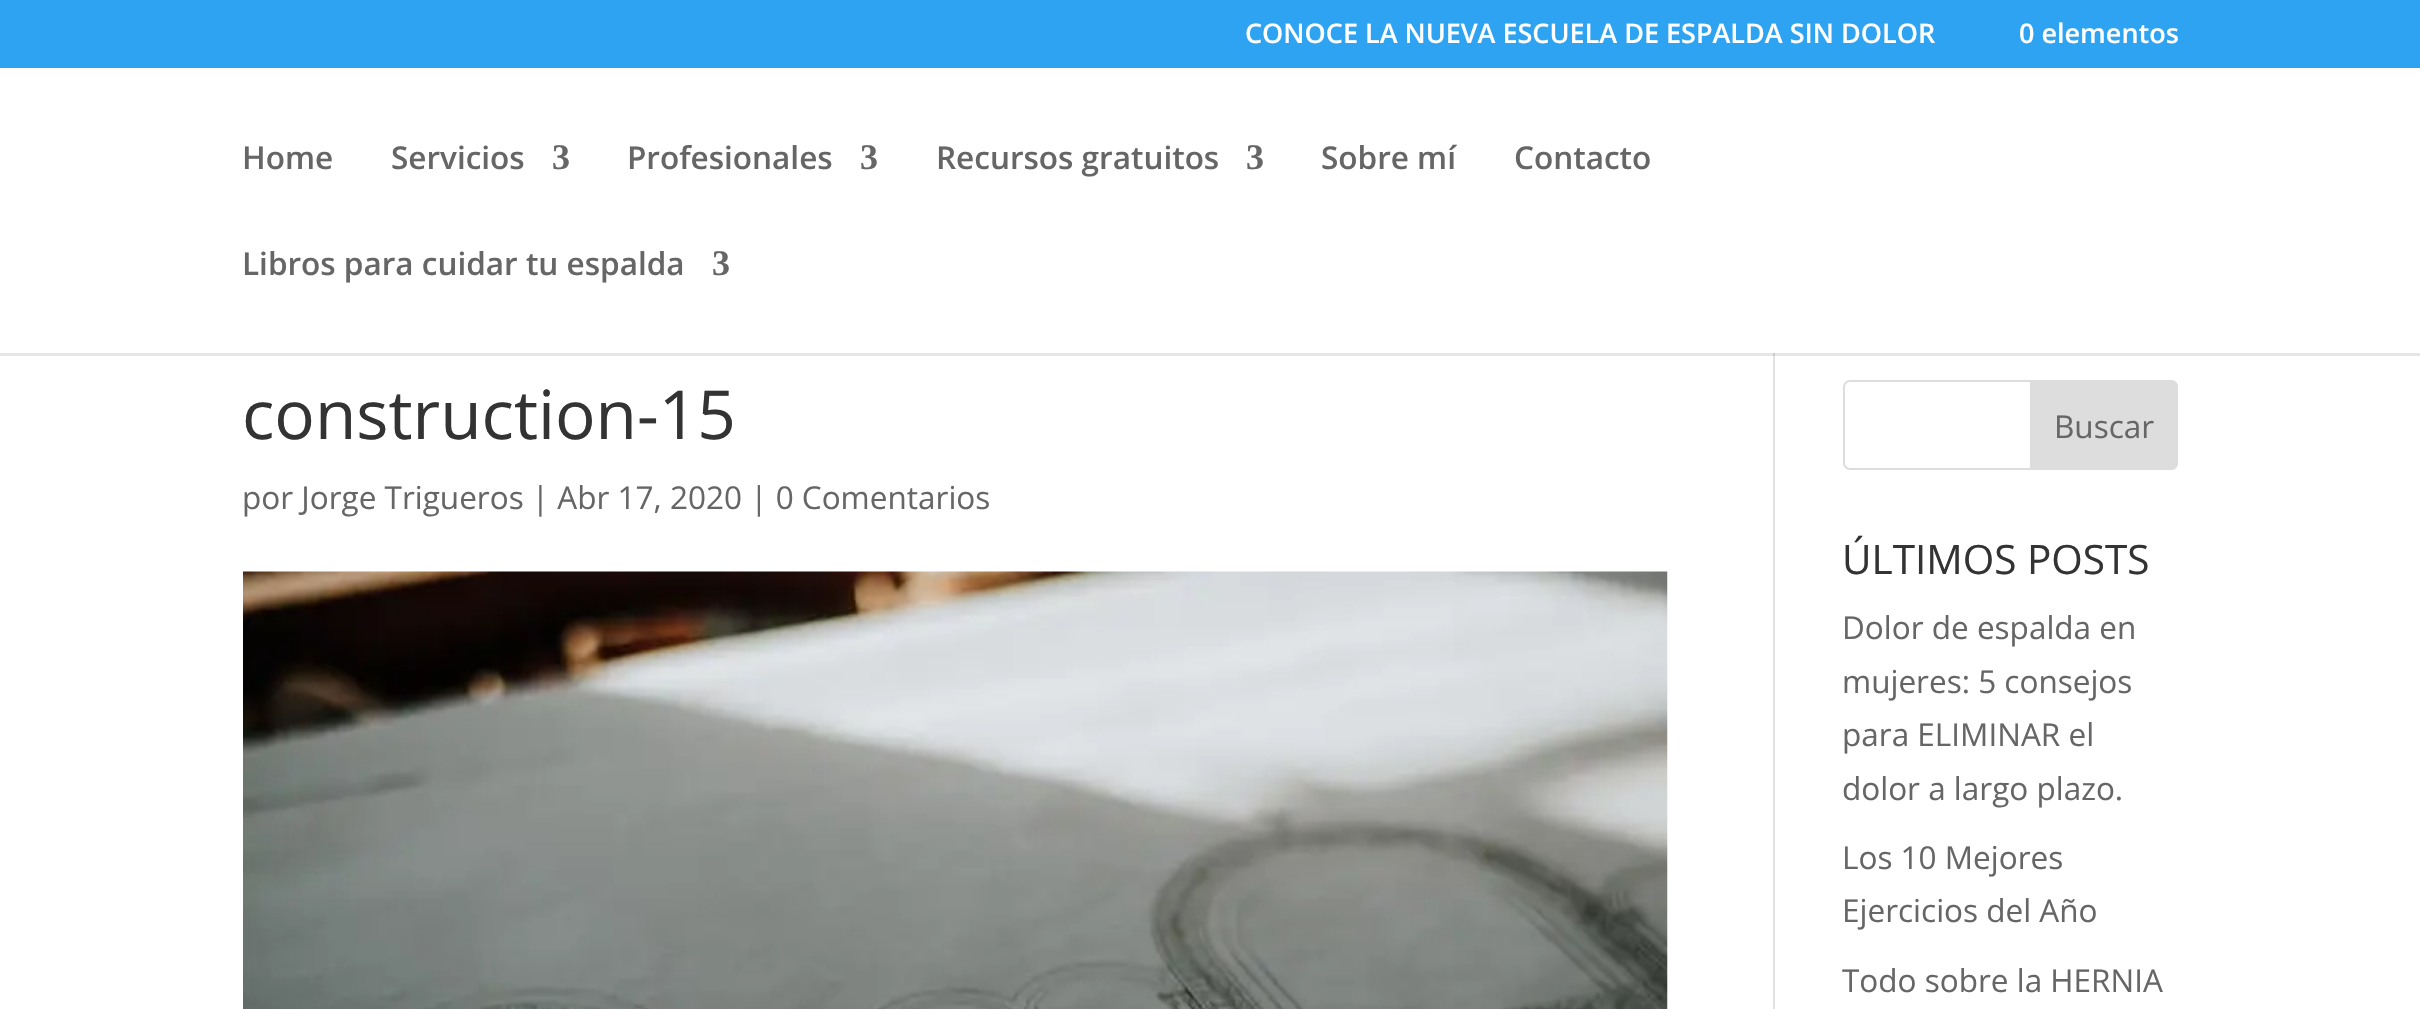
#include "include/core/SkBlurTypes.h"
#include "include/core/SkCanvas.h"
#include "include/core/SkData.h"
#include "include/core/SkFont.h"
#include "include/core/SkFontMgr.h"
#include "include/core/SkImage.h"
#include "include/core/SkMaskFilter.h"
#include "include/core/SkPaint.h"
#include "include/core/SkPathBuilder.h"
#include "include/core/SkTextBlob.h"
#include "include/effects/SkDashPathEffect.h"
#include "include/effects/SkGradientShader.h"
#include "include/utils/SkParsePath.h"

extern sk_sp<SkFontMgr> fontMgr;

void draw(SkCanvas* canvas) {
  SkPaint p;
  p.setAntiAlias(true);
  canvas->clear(SK_ColorWHITE);
  p.setColor(SkColorSetRGB(230, 230, 230));
  canvas->drawRect(SkRect::MakeLTRB(0, 353, 2420, 356), p);
  p.setColor(SkColorSetRGB(46, 163, 242));
  canvas->drawRect(SkRect::MakeLTRB(0, 0, 2420, 68), p);
  p.setColor(SkColorSetRGB(226, 226, 226));
  canvas->drawRect(SkRect::MakeLTRB(1773, 356, 1775, 1009), p);
  p.setColor(SkColorSetRGB(203, 203, 203));
  canvas->drawRect(SkRect::MakeLTRB(1773, 353, 1775, 356), p);
  canvas->drawImageRect(SkImages::DeferredFromEncodedData(SkData::MakeFromFileName("images/1.png")), SkRect::MakeLTRB(243, 571, 1668, 1009), SkSamplingOptions());
  p.setStyle(SkPaint::kStroke_Style);
  p.setStrokeWidth(2);
  p.setColor(SkColorSetRGB(221, 221, 221));
  canvas->drawRoundRect(SkRect::MakeLTRB(1844, 381, 2177, 469), 6, 6, p);
  p.setStyle(SkPaint::kFill_Style);
  canvas->drawPath(SkPathBuilder().moveTo(2031, 381).lineTo(2171, 381).cubicTo(2174.5f, 381, 2177, 383.5f, 2177, 387).lineTo(2177, 463).cubicTo(2177, 466.5f, 2174.5f, 469, 2171, 469).lineTo(2031, 469).close().detach(), p);
  p.setStyle(SkPaint::kStroke_Style);
  canvas->drawPath(SkPathBuilder().moveTo(2031, 381).lineTo(2171, 381).cubicTo(2174.5f, 381, 2177, 383.5f, 2177, 387).lineTo(2177, 463).cubicTo(2177, 466.5f, 2174.5f, 469, 2171, 469).lineTo(2031, 469).close().detach(), p);
  SkFont font1(fontMgr->matchFamilyStyle("Open Sans", SkFontStyle(600, SkFontStyle::kNormal_Width, SkFontStyle::kUpright_Slant)), 27);
  font1.setSubpixel(true);
  p.setStyle(SkPaint::kFill_Style);
  p.setColor(SK_ColorWHITE);
  canvas->drawString("CONOCE LA NUEVA ESCUELA DE ESPALDA SIN DOLOR", 1245, 43, font1, p);
  canvas->drawString("0 elementos", 2019, 43, font1, p);
  SkFont font2(fontMgr->matchFamilyStyle("Open Sans", SkFontStyle(600, SkFontStyle::kNormal_Width, SkFontStyle::kUpright_Slant)), 31.5f);
  font2.setSubpixel(true);
  p.setColor(SkColorSetRGB(102, 102, 102));
  canvas->drawString("Home", 242, 169, font2, p);
  canvas->drawString("Servicios", 391, 169, font2, p);
  SkFont font3(fontMgr->matchFamilyStyle("Liberation Serif", SkFontStyle::Bold()), 36);
  font3.setSubpixel(true);
  canvas->drawString("3", 552, 169, font3, p);
  canvas->drawString("Profesionales", 627, 169, font2, p);
  canvas->drawString("3", 860, 169, font3, p);
  canvas->drawString("Recursos gratuitos", 936, 169, font2, p);
  canvas->drawString("3", 1246, 169, font3, p);
  canvas->drawString("Sobre mí", 1321, 169, font2, p);
  canvas->drawString("Contacto", 1514, 169, font2, p);
  canvas->drawString("Libros para cuidar tu espalda", 242, 275, font2, p);
  canvas->drawString("3", 712, 275, font3, p);
  SkFont font4(fontMgr->matchFamilyStyle("Open Sans", SkFontStyle::Normal()), 67.5f);
  font4.setSubpixel(true);
  p.setColor(SkColorSetRGB(51, 51, 51));
  canvas->drawString("construction-15", 242, 439, font4, p);
  SkFont font5(fontMgr->matchFamilyStyle("Open Sans", SkFontStyle::Normal()), 31.5f);
  font5.setSubpixel(true);
  p.setColor(SkColorSetRGB(102, 102, 102));
  canvas->drawString("por Jorge Trigueros | Abr 17, 2020 | 0 Comentarios", 242, 509, font5, p);
  canvas->drawString("Buscar", 2054, 438, font5, p);
  SkFont font6(fontMgr->matchFamilyStyle("Open Sans", SkFontStyle::Normal()), 40.5f);
  font6.setSubpixel(true);
  p.setColor(SkColorSetRGB(51, 51, 51));
  canvas->drawString("ÚLTIMOS POSTS", 1842, 574, font6, p);
  p.setColor(SkColorSetRGB(102, 102, 102));
  canvas->drawString("Dolor de espalda en", 1842, 639, font5, p);
  canvas->drawString("mujeres: 5 consejos", 1842, 693, font5, p);
  canvas->drawString("para ELIMINAR el", 1842, 746, font5, p);
  canvas->drawString("dolor a largo plazo.", 1842, 800, font5, p);
  canvas->drawString("Los 10 Mejores", 1842, 869, font5, p);
  canvas->drawString("Ejercicios del Año", 1842, 922, font5, p);
  canvas->drawString("Todo sobre la HERNIA", 1842, 992, font5, p);
}
